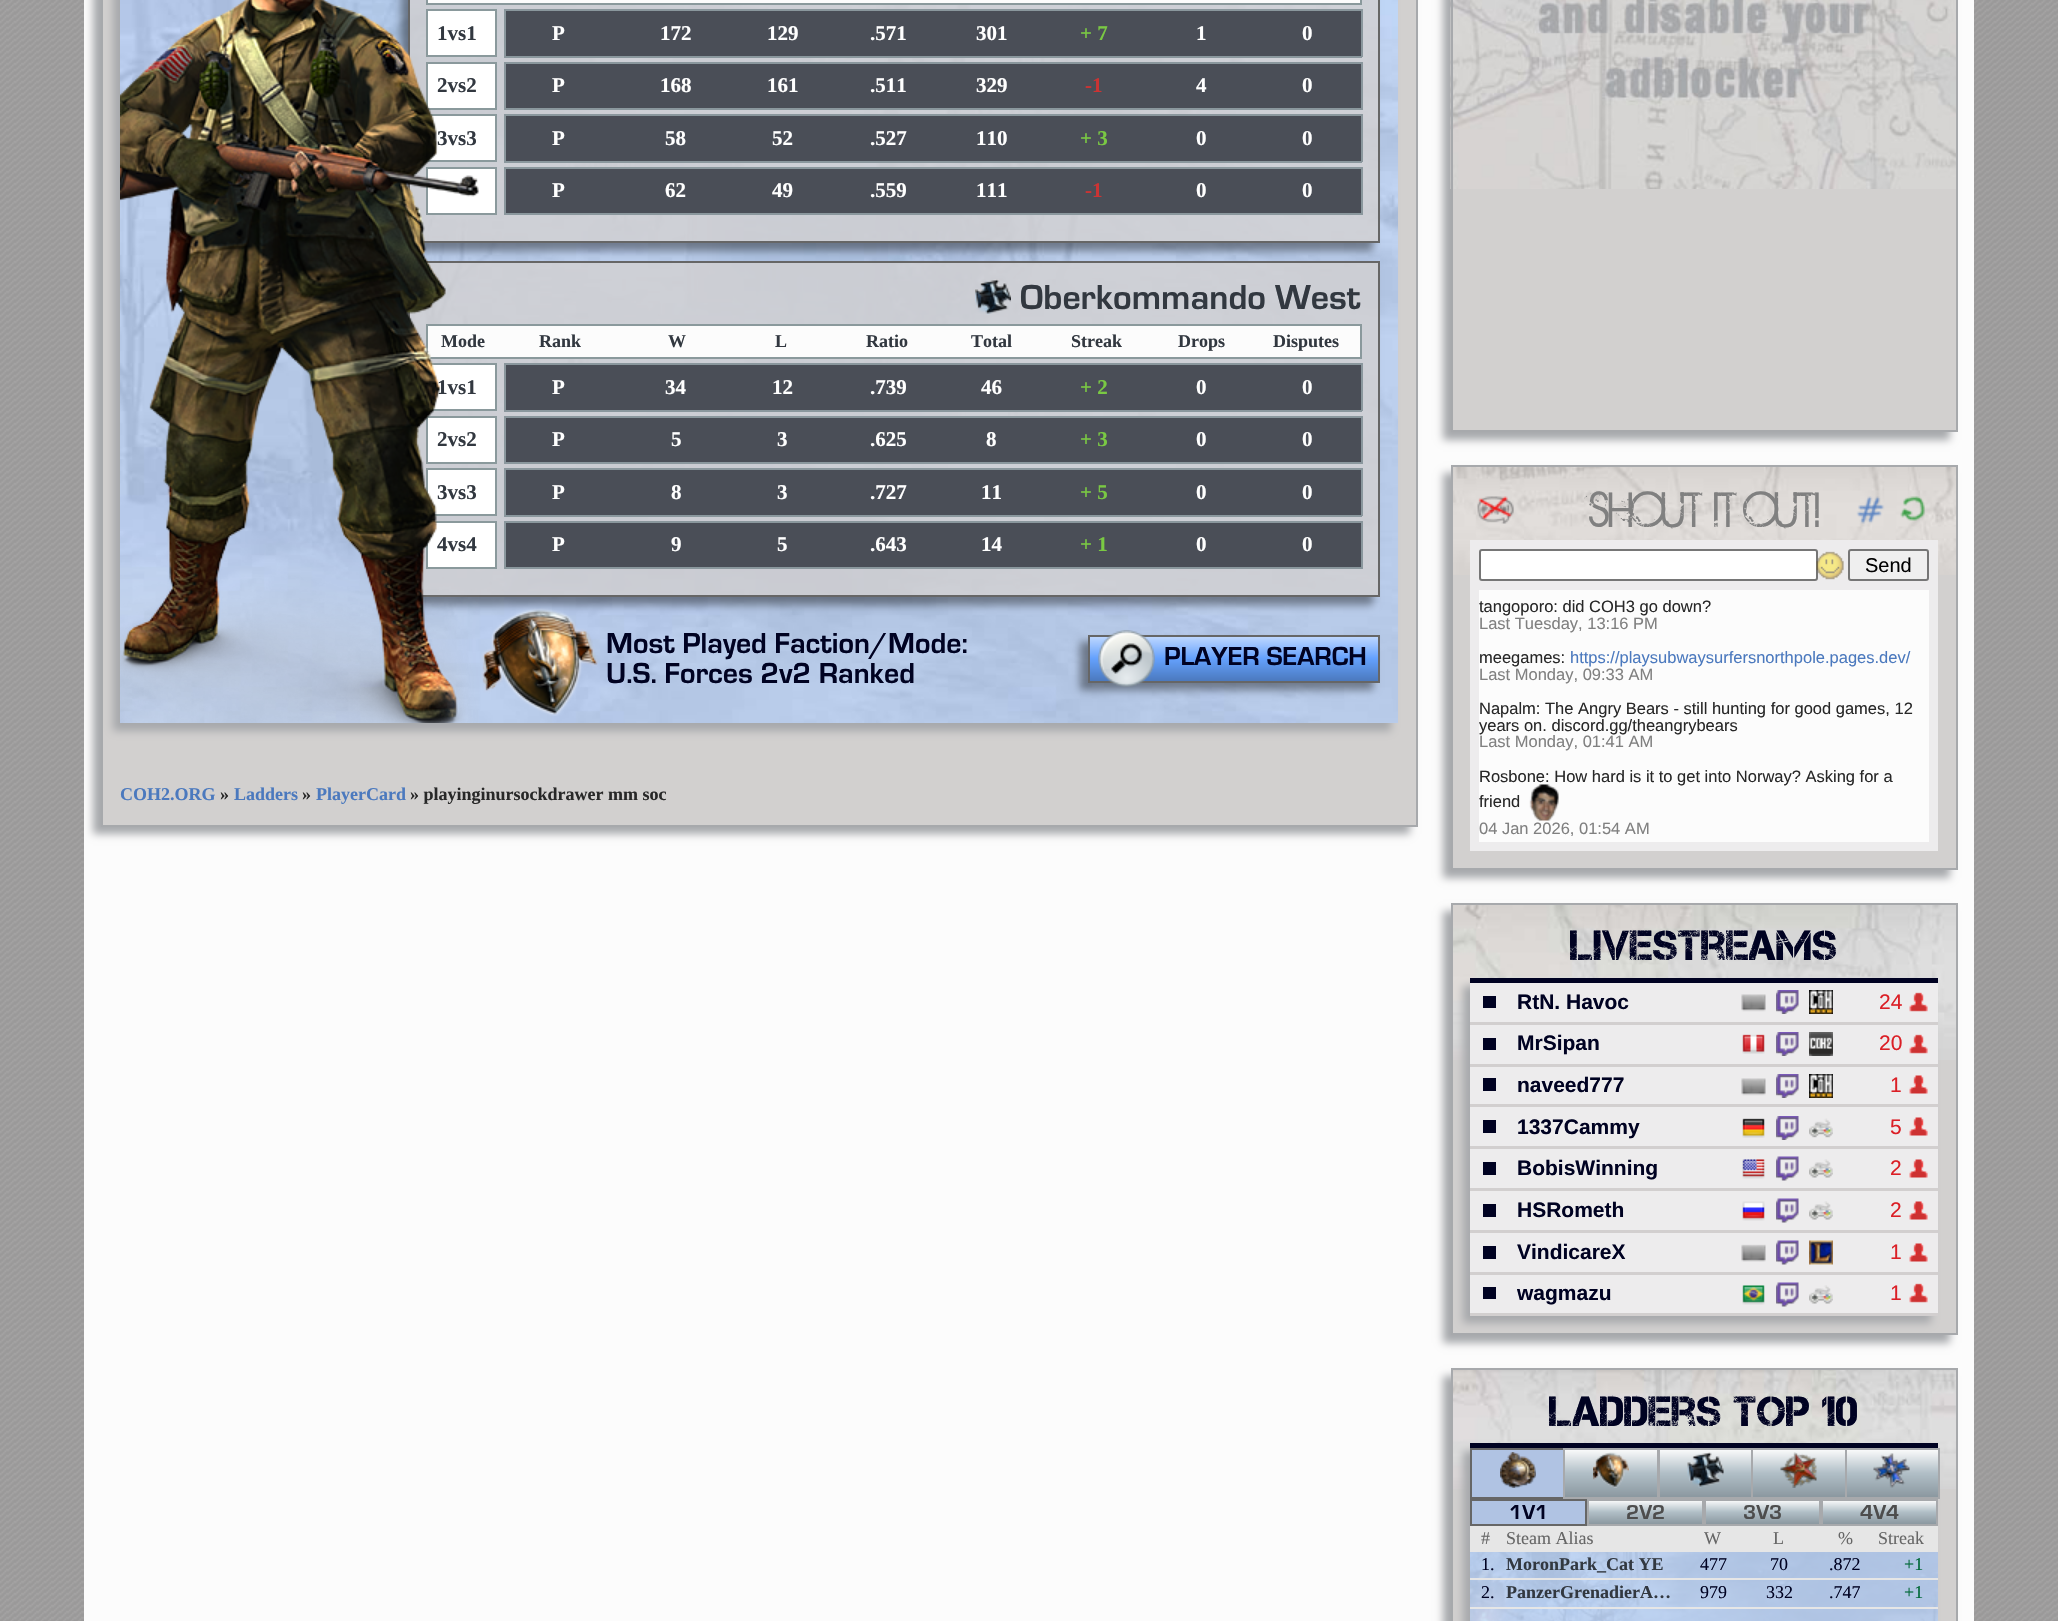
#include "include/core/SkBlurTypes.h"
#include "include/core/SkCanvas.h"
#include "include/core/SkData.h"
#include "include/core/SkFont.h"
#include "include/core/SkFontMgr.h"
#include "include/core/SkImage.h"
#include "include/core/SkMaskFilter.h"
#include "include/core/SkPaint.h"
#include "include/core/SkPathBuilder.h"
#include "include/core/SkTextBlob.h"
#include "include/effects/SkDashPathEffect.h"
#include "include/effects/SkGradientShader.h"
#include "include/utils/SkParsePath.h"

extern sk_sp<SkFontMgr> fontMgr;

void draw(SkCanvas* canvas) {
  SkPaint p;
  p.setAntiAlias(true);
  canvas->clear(SK_ColorWHITE);
  canvas->drawImageRect(SkImages::DeferredFromEncodedData(SkData::MakeFromFileName("images/1.png")), SkRect::MakeLTRB(0, 0, 2058, 1621), SkSamplingOptions());
  p.setColor(SkColorSetRGB(252, 252, 252));
  canvas->drawRect(SkRect::MakeLTRB(84, 0, 1974, 1621), p);
  p.setColor(SkColorSetRGB(167, 169, 172));
  p.setMaskFilter(SkMaskFilter::MakeBlur(kNormal_SkBlurStyle, 4));
  canvas->drawRect(SkRect::MakeLTRB(93, -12, 1410, 834), p);
  p.setMaskFilter(nullptr);
  p.setColor(SkColorSetRGB(210, 208, 207));
  canvas->drawRect(SkRect::MakeLTRB(102, -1, 1417, 826), p);
  p.setStyle(SkPaint::kStroke_Style);
  p.setStrokeWidth(2);
  p.setColor(SkColorSetRGB(167, 169, 172));
  canvas->drawRect(SkRect::MakeLTRB(102, -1, 1417, 826), p);
  p.setStyle(SkPaint::kFill_Style);
  p.setMaskFilter(SkMaskFilter::MakeBlur(kNormal_SkBlurStyle, 4));
  canvas->drawRect(SkRect::MakeLTRB(113, -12, 1391, 731), p);
  p.setMaskFilter(nullptr);
  canvas->drawImageRect(SkImages::DeferredFromEncodedData(SkData::MakeFromFileName("images/2.png")), SkRect::MakeLTRB(120, 0, 1398, 723), SkSamplingOptions());
  canvas->save();
  canvas->clipPath(SkPathBuilder(SkPathFillType::kEvenOdd).moveTo(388, 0).lineTo(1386, 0).lineTo(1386, 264).lineTo(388, 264).close().moveTo(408, -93).lineTo(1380, -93).lineTo(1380, 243).lineTo(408, 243).close().detach(), true);
  p.setColor(SkColorSetARGB(102, 0, 0, 0));
  p.setMaskFilter(SkMaskFilter::MakeBlur(kNormal_SkBlurStyle, 4));
  canvas->drawRect(SkRect::MakeLTRB(401, -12, 1373, 251), p);
  p.setMaskFilter(nullptr);
  canvas->restore();
  p.setColor(SkColorSetARGB(204, 210, 208, 207));
  canvas->drawRect(SkRect::MakeLTRB(409, -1, 1379, 242), p);
  p.setStyle(SkPaint::kStroke_Style);
  p.setColor(SkColorSetRGB(102, 102, 102));
  canvas->drawRect(SkRect::MakeLTRB(409, -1, 1379, 242), p);
  p.setStyle(SkPaint::kFill_Style);
  p.setColor(SkColorSetRGB(252, 252, 252));
  canvas->drawRect(SkRect::MakeLTRB(427, -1, 1361, 4), p);
  p.setStyle(SkPaint::kStroke_Style);
  p.setColor(SkColorSetRGB(138, 153, 156));
  canvas->drawRect(SkRect::MakeLTRB(427, -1, 1361, 4), p);
  p.setStyle(SkPaint::kFill_Style);
  p.setColor(SK_ColorWHITE);
  canvas->drawRect(SkRect::MakeLTRB(427, 10, 496, 56), p);
  p.setStyle(SkPaint::kStroke_Style);
  p.setColor(SkColorSetRGB(138, 153, 156));
  canvas->drawRect(SkRect::MakeLTRB(427, 10, 496, 56), p);
  p.setStyle(SkPaint::kFill_Style);
  p.setColor(SkColorSetRGB(74, 78, 87));
  canvas->drawRect(SkRect::MakeLTRB(506, 11, 1361, 56), p);
  p.setColor(SkColorSetRGB(138, 151, 157));
  canvas->drawRect(SkRect::MakeLTRB(504, 9, 1362, 11), p);
  canvas->drawRect(SkRect::MakeLTRB(504, 56, 1254, 58), p);
  canvas->drawRect(SkRect::MakeLTRB(504, 9, 506, 57), p);
  canvas->drawRect(SkRect::MakeLTRB(1361, 9, 1363, 57), p);
  canvas->drawRect(SkRect::MakeLTRB(1254, 56, 1362, 58), p);
  p.setColor(SK_ColorWHITE);
  canvas->drawRect(SkRect::MakeLTRB(427, 63, 496, 109), p);
  p.setStyle(SkPaint::kStroke_Style);
  p.setColor(SkColorSetRGB(138, 153, 156));
  canvas->drawRect(SkRect::MakeLTRB(427, 63, 496, 109), p);
  p.setStyle(SkPaint::kFill_Style);
  p.setColor(SkColorSetRGB(74, 78, 87));
  canvas->drawRect(SkRect::MakeLTRB(506, 64, 1361, 108), p);
  p.setColor(SkColorSetRGB(138, 151, 157));
  canvas->drawRect(SkRect::MakeLTRB(504, 62, 1362, 64), p);
  canvas->drawRect(SkRect::MakeLTRB(504, 108, 1254, 110), p);
  canvas->drawRect(SkRect::MakeLTRB(504, 62, 506, 110), p);
  canvas->drawRect(SkRect::MakeLTRB(1361, 62, 1363, 110), p);
  canvas->drawRect(SkRect::MakeLTRB(1254, 108, 1362, 110), p);
  p.setColor(SK_ColorWHITE);
  canvas->drawRect(SkRect::MakeLTRB(427, 115, 496, 161), p);
  p.setStyle(SkPaint::kStroke_Style);
  p.setColor(SkColorSetRGB(138, 153, 156));
  canvas->drawRect(SkRect::MakeLTRB(427, 115, 496, 161), p);
  p.setStyle(SkPaint::kFill_Style);
  p.setColor(SkColorSetRGB(74, 78, 87));
  canvas->drawRect(SkRect::MakeLTRB(506, 116, 1361, 161), p);
  p.setColor(SkColorSetRGB(138, 151, 157));
  canvas->drawRect(SkRect::MakeLTRB(504, 114, 1362, 116), p);
  canvas->drawRect(SkRect::MakeLTRB(504, 161, 1254, 163), p);
  canvas->drawRect(SkRect::MakeLTRB(504, 114, 506, 162), p);
  canvas->drawRect(SkRect::MakeLTRB(1361, 114, 1363, 162), p);
  canvas->drawRect(SkRect::MakeLTRB(1254, 161, 1362, 163), p);
  p.setColor(SK_ColorWHITE);
  canvas->drawRect(SkRect::MakeLTRB(427, 168, 496, 214), p);
  p.setStyle(SkPaint::kStroke_Style);
  p.setColor(SkColorSetRGB(138, 153, 156));
  canvas->drawRect(SkRect::MakeLTRB(427, 168, 496, 214), p);
  p.setStyle(SkPaint::kFill_Style);
  p.setColor(SkColorSetRGB(74, 78, 87));
  canvas->drawRect(SkRect::MakeLTRB(506, 169, 1361, 213), p);
  p.setColor(SkColorSetRGB(138, 151, 157));
  canvas->drawRect(SkRect::MakeLTRB(504, 167, 1362, 169), p);
  canvas->drawRect(SkRect::MakeLTRB(504, 213, 1254, 215), p);
  canvas->drawRect(SkRect::MakeLTRB(504, 167, 506, 215), p);
  canvas->drawRect(SkRect::MakeLTRB(1361, 167, 1363, 215), p);
  canvas->drawRect(SkRect::MakeLTRB(1254, 213, 1362, 215), p);
  canvas->save();
  canvas->clipPath(SkPathBuilder(SkPathFillType::kEvenOdd).moveTo(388, 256).lineTo(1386, 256).lineTo(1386, 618).lineTo(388, 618).close().moveTo(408, 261).lineTo(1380, 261).lineTo(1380, 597).lineTo(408, 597).close().detach(), true);
  p.setColor(SkColorSetARGB(102, 0, 0, 0));
  p.setMaskFilter(SkMaskFilter::MakeBlur(kNormal_SkBlurStyle, 4));
  canvas->drawRect(SkRect::MakeLTRB(401, 269, 1373, 605), p);
  p.setMaskFilter(nullptr);
  canvas->restore();
  p.setColor(SkColorSetARGB(204, 210, 208, 207));
  canvas->drawRect(SkRect::MakeLTRB(409, 262, 1379, 596), p);
  p.setStyle(SkPaint::kStroke_Style);
  p.setColor(SkColorSetRGB(102, 102, 102));
  canvas->drawRect(SkRect::MakeLTRB(409, 262, 1379, 596), p);
  canvas->drawImageRect(SkImages::DeferredFromEncodedData(SkData::MakeFromFileName("images/4.png")), SkRect::MakeLTRB(975, 279, 1011, 315), SkSamplingOptions());
  p.setStyle(SkPaint::kFill_Style);
  p.setColor(SkColorSetRGB(252, 252, 252));
  canvas->drawRect(SkRect::MakeLTRB(427, 325, 1361, 358), p);
  p.setStyle(SkPaint::kStroke_Style);
  p.setColor(SkColorSetRGB(138, 153, 156));
  canvas->drawRect(SkRect::MakeLTRB(427, 325, 1361, 358), p);
  p.setStyle(SkPaint::kFill_Style);
  p.setColor(SK_ColorWHITE);
  canvas->drawRect(SkRect::MakeLTRB(427, 364, 496, 410), p);
  p.setStyle(SkPaint::kStroke_Style);
  p.setColor(SkColorSetRGB(138, 153, 156));
  canvas->drawRect(SkRect::MakeLTRB(427, 364, 496, 410), p);
  p.setStyle(SkPaint::kFill_Style);
  p.setColor(SkColorSetRGB(74, 78, 87));
  canvas->drawRect(SkRect::MakeLTRB(506, 365, 1361, 410), p);
  p.setColor(SkColorSetRGB(138, 151, 157));
  canvas->drawRect(SkRect::MakeLTRB(504, 363, 1362, 365), p);
  canvas->drawRect(SkRect::MakeLTRB(504, 410, 1254, 412), p);
  canvas->drawRect(SkRect::MakeLTRB(504, 363, 506, 411), p);
  canvas->drawRect(SkRect::MakeLTRB(1361, 363, 1363, 411), p);
  canvas->drawRect(SkRect::MakeLTRB(1254, 410, 1362, 412), p);
  p.setColor(SK_ColorWHITE);
  canvas->drawRect(SkRect::MakeLTRB(427, 417, 496, 463), p);
  p.setStyle(SkPaint::kStroke_Style);
  p.setColor(SkColorSetRGB(138, 153, 156));
  canvas->drawRect(SkRect::MakeLTRB(427, 417, 496, 463), p);
  p.setStyle(SkPaint::kFill_Style);
  p.setColor(SkColorSetRGB(74, 78, 87));
  canvas->drawRect(SkRect::MakeLTRB(506, 418, 1361, 462), p);
  p.setColor(SkColorSetRGB(138, 151, 157));
  canvas->drawRect(SkRect::MakeLTRB(504, 416, 1362, 418), p);
  canvas->drawRect(SkRect::MakeLTRB(504, 462, 1254, 464), p);
  canvas->drawRect(SkRect::MakeLTRB(504, 416, 506, 464), p);
  canvas->drawRect(SkRect::MakeLTRB(1361, 416, 1363, 464), p);
  canvas->drawRect(SkRect::MakeLTRB(1254, 462, 1362, 464), p);
  p.setColor(SK_ColorWHITE);
  canvas->drawRect(SkRect::MakeLTRB(427, 469, 496, 515), p);
  p.setStyle(SkPaint::kStroke_Style);
  p.setColor(SkColorSetRGB(138, 153, 156));
  canvas->drawRect(SkRect::MakeLTRB(427, 469, 496, 515), p);
  p.setStyle(SkPaint::kFill_Style);
  p.setColor(SkColorSetRGB(74, 78, 87));
  canvas->drawRect(SkRect::MakeLTRB(506, 470, 1361, 515), p);
  p.setColor(SkColorSetRGB(138, 151, 157));
  canvas->drawRect(SkRect::MakeLTRB(504, 468, 1362, 470), p);
  canvas->drawRect(SkRect::MakeLTRB(504, 515, 1254, 517), p);
  canvas->drawRect(SkRect::MakeLTRB(504, 468, 506, 516), p);
  canvas->drawRect(SkRect::MakeLTRB(1361, 468, 1363, 516), p);
  canvas->drawRect(SkRect::MakeLTRB(1254, 515, 1362, 517), p);
  p.setColor(SK_ColorWHITE);
  canvas->drawRect(SkRect::MakeLTRB(427, 522, 496, 568), p);
  p.setStyle(SkPaint::kStroke_Style);
  p.setColor(SkColorSetRGB(138, 153, 156));
  canvas->drawRect(SkRect::MakeLTRB(427, 522, 496, 568), p);
  p.setStyle(SkPaint::kFill_Style);
  p.setColor(SkColorSetRGB(74, 78, 87));
  canvas->drawRect(SkRect::MakeLTRB(506, 523, 1361, 567), p);
  p.setColor(SkColorSetRGB(138, 151, 157));
  canvas->drawRect(SkRect::MakeLTRB(504, 521, 1362, 523), p);
  canvas->drawRect(SkRect::MakeLTRB(504, 567, 1254, 569), p);
  canvas->drawRect(SkRect::MakeLTRB(504, 521, 506, 569), p);
  canvas->drawRect(SkRect::MakeLTRB(1361, 521, 1363, 569), p);
  canvas->drawRect(SkRect::MakeLTRB(1254, 567, 1362, 569), p);
  canvas->drawImageRect(SkImages::DeferredFromEncodedData(SkData::MakeFromFileName("images/5.png")), SkRect::MakeLTRB(481, 608, 598, 716), SkSamplingOptions());
  p.setColor(SkColorSetARGB(102, 0, 0, 0));
  p.setMaskFilter(SkMaskFilter::MakeBlur(kNormal_SkBlurStyle, 4));
  canvas->drawRect(SkRect::MakeLTRB(1080, 642, 1373, 690), p);
  p.setMaskFilter(nullptr);
  {
    const SkColor colors[] = {SkColorSetRGB(193, 217, 254), SkColorSetRGB(100, 161, 253), SkColorSetRGB(75, 121, 190)};
    const float stops[] = {0, 0.5f, 1};
    const SkPoint ends[] = {{1089, 636}, {1089, 681}};
    p.setShader(SkGradientShader::MakeLinear(ends, colors, stops, 3, SkTileMode::kClamp));
    p.setAlpha(255);
  }
  canvas->drawRect(SkRect::MakeLTRB(1090, 637, 1378, 681), p);
  p.setStyle(SkPaint::kStroke_Style);
  p.setShader(nullptr);
  p.setColor(SkColorSetRGB(102, 102, 102));
  canvas->drawRect(SkRect::MakeLTRB(1089, 636, 1379, 682), p);
  canvas->drawImageRect(SkImages::DeferredFromEncodedData(SkData::MakeFromFileName("images/6.png")), SkRect::MakeLTRB(1098, 630, 1155, 687), SkSamplingOptions());
  p.setStyle(SkPaint::kFill_Style);
  p.setColor(SkColorSetRGB(167, 169, 172));
  p.setMaskFilter(SkMaskFilter::MakeBlur(kNormal_SkBlurStyle, 4));
  canvas->drawRect(SkRect::MakeLTRB(1443, -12, 1950, 440), p);
  p.setMaskFilter(nullptr);
  p.setColor(SkColorSetRGB(210, 208, 207));
  canvas->drawRect(SkRect::MakeLTRB(1453, 189, 1956, 430), p);
  canvas->drawImageRect(SkImages::DeferredFromEncodedData(SkData::MakeFromFileName("images/7.png")), SkRect::MakeLTRB(1450, 0, 1956, 189), SkSamplingOptions());
  p.setStyle(SkPaint::kStroke_Style);
  p.setColor(SkColorSetRGB(167, 169, 172));
  canvas->drawRect(SkRect::MakeLTRB(1452, -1, 1957, 431), p);
  p.setStyle(SkPaint::kFill_Style);
  p.setMaskFilter(SkMaskFilter::MakeBlur(kNormal_SkBlurStyle, 4));
  canvas->drawRect(SkRect::MakeLTRB(1443, 473, 1950, 878), p);
  p.setMaskFilter(nullptr);
  p.setColor(SkColorSetRGB(210, 208, 207));
  canvas->drawRect(SkRect::MakeLTRB(1453, 575, 1956, 868), p);
  canvas->drawImageRect(SkImages::DeferredFromEncodedData(SkData::MakeFromFileName("images/8.png")), SkRect::MakeLTRB(1453, 467, 1956, 575), SkSamplingOptions());
  p.setStyle(SkPaint::kStroke_Style);
  p.setColor(SkColorSetRGB(167, 169, 172));
  canvas->drawRect(SkRect::MakeLTRB(1452, 466, 1957, 869), p);
  p.setStyle(SkPaint::kFill_Style);
  p.setColor(SkColorSetRGB(237, 236, 237));
  canvas->drawRect(SkRect::MakeLTRB(1470, 540, 1938, 851), p);
  canvas->drawImageRect(SkImages::DeferredFromEncodedData(SkData::MakeFromFileName("images/9.png")), SkRect::MakeLTRB(1477, 496, 1514, 524), SkSamplingOptions());
  canvas->drawImageRect(SkImages::DeferredFromEncodedData(SkData::MakeFromFileName("images/10.png")), SkRect::MakeLTRB(1856, 496, 1885, 524), SkSamplingOptions());
  canvas->drawImageRect(SkImages::DeferredFromEncodedData(SkData::MakeFromFileName("images/11.png")), SkRect::MakeLTRB(1900, 496, 1925, 521), SkSamplingOptions());
  p.setColor(SK_ColorWHITE);
  canvas->drawRoundRect(SkRect::MakeLTRB(1480, 550, 1817, 580), 2, 2, p);
  p.setStyle(SkPaint::kStroke_Style);
  p.setColor(SkColorSetRGB(118, 118, 118));
  canvas->drawRoundRect(SkRect::MakeLTRB(1480, 550, 1817, 580), 2, 2, p);
  canvas->drawImageRect(SkImages::DeferredFromEncodedData(SkData::MakeFromFileName("images/12.png")), SkRect::MakeLTRB(1816, 551, 1844, 580), SkSamplingOptions());
  p.setStyle(SkPaint::kFill_Style);
  p.setColor(SkColorSetRGB(239, 239, 239));
  canvas->drawRoundRect(SkRect::MakeLTRB(1849, 550, 1928, 580), 2, 2, p);
  p.setStyle(SkPaint::kStroke_Style);
  p.setColor(SkColorSetRGB(118, 118, 118));
  canvas->drawRoundRect(SkRect::MakeLTRB(1849, 550, 1928, 580), 2, 2, p);
  p.setStyle(SkPaint::kFill_Style);
  p.setColor(SkColorSetRGB(252, 252, 252));
  canvas->drawRect(SkRect::MakeLTRB(1479, 590, 1929, 842), p);
  p.setColor(SkColorSetRGB(167, 169, 172));
  p.setMaskFilter(SkMaskFilter::MakeBlur(kNormal_SkBlurStyle, 4));
  canvas->drawRect(SkRect::MakeLTRB(1443, 911, 1950, 1343), p);
  p.setMaskFilter(nullptr);
  p.setColor(SkColorSetRGB(210, 208, 207));
  canvas->drawRect(SkRect::MakeLTRB(1453, 1060, 1956, 1333), p);
  canvas->drawImageRect(SkImages::DeferredFromEncodedData(SkData::MakeFromFileName("images/14.png")), SkRect::MakeLTRB(1453, 905, 1956, 1060), SkSamplingOptions());
  p.setStyle(SkPaint::kStroke_Style);
  p.setColor(SkColorSetRGB(167, 169, 172));
  canvas->drawRect(SkRect::MakeLTRB(1452, 904, 1957, 1334), p);
  p.setStyle(SkPaint::kFill_Style);
  p.setMaskFilter(SkMaskFilter::MakeBlur(kNormal_SkBlurStyle, 4));
  canvas->drawRect(SkRect::MakeLTRB(1463, 986, 1931, 1323), p);
  p.setMaskFilter(nullptr);
  p.setColor(SkColorSetRGB(237, 236, 237));
  canvas->drawRect(SkRect::MakeLTRB(1470, 983, 1938, 1313), p);
  p.setColor(SkColorSetRGB(0, 2, 34));
  canvas->drawRect(SkRect::MakeLTRB(1470, 978, 1938, 983), p);
  canvas->drawImageRect(SkImages::DeferredFromEncodedData(SkData::MakeFromFileName("images/15.png")), SkRect::MakeLTRB(1741, 994, 1766, 1012), SkSamplingOptions());
  canvas->drawImageRect(SkImages::DeferredFromEncodedData(SkData::MakeFromFileName("images/16.png")), SkRect::MakeLTRB(1776, 990, 1799, 1014), SkSamplingOptions());
  canvas->drawImageRect(SkImages::DeferredFromEncodedData(SkData::MakeFromFileName("images/17.png")), SkRect::MakeLTRB(1809, 990, 1833, 1014), SkSamplingOptions());
  canvas->drawImageRect(SkImages::DeferredFromEncodedData(SkData::MakeFromFileName("images/18.png")), SkRect::MakeLTRB(1909, 992, 1928, 1012), SkSamplingOptions());
  canvas->drawRect(SkRect::MakeLTRB(1483, 996, 1496, 1008), p);
  p.setColor(SkColorSetRGB(210, 207, 207));
  canvas->drawRect(SkRect::MakeLTRB(1470, 1022, 1938, 1025), p);
  canvas->drawImageRect(SkImages::DeferredFromEncodedData(SkData::MakeFromFileName("images/19.png")), SkRect::MakeLTRB(1742, 1034, 1765, 1054), SkSamplingOptions());
  canvas->drawImageRect(SkImages::DeferredFromEncodedData(SkData::MakeFromFileName("images/16.png")), SkRect::MakeLTRB(1776, 1032, 1799, 1056), SkSamplingOptions());
  canvas->drawImageRect(SkImages::DeferredFromEncodedData(SkData::MakeFromFileName("images/20.png")), SkRect::MakeLTRB(1809, 1032, 1833, 1056), SkSamplingOptions());
  canvas->drawImageRect(SkImages::DeferredFromEncodedData(SkData::MakeFromFileName("images/18.png")), SkRect::MakeLTRB(1909, 1034, 1928, 1054), SkSamplingOptions());
  p.setColor(SkColorSetRGB(0, 2, 34));
  canvas->drawRect(SkRect::MakeLTRB(1483, 1038, 1496, 1050), p);
  p.setColor(SkColorSetRGB(210, 207, 207));
  canvas->drawRect(SkRect::MakeLTRB(1470, 1064, 1938, 1067), p);
  canvas->drawImageRect(SkImages::DeferredFromEncodedData(SkData::MakeFromFileName("images/16.png")), SkRect::MakeLTRB(1776, 1074, 1799, 1098), SkSamplingOptions());
  canvas->drawImageRect(SkImages::DeferredFromEncodedData(SkData::MakeFromFileName("images/17.png")), SkRect::MakeLTRB(1809, 1074, 1833, 1098), SkSamplingOptions());
  canvas->drawImageRect(SkImages::DeferredFromEncodedData(SkData::MakeFromFileName("images/21.png")), SkRect::MakeLTRB(1909, 1075, 1928, 1094), SkSamplingOptions());
  p.setColor(SkColorSetRGB(0, 2, 34));
  canvas->drawRect(SkRect::MakeLTRB(1483, 1078, 1496, 1091), p);
  p.setColor(SkColorSetRGB(210, 207, 207));
  canvas->drawRect(SkRect::MakeLTRB(1470, 1104, 1938, 1107), p);
  canvas->drawImageRect(SkImages::DeferredFromEncodedData(SkData::MakeFromFileName("images/15.png")), SkRect::MakeLTRB(1741, 1078, 1766, 1096), SkSamplingOptions());
  canvas->drawImageRect(SkImages::DeferredFromEncodedData(SkData::MakeFromFileName("images/22.png")), SkRect::MakeLTRB(1742, 1118, 1765, 1138), SkSamplingOptions());
  canvas->drawImageRect(SkImages::DeferredFromEncodedData(SkData::MakeFromFileName("images/16.png")), SkRect::MakeLTRB(1776, 1116, 1799, 1140), SkSamplingOptions());
  canvas->drawImageRect(SkImages::DeferredFromEncodedData(SkData::MakeFromFileName("images/23.png")), SkRect::MakeLTRB(1809, 1118, 1833, 1138), SkSamplingOptions());
  canvas->drawImageRect(SkImages::DeferredFromEncodedData(SkData::MakeFromFileName("images/21.png")), SkRect::MakeLTRB(1909, 1117, 1928, 1136), SkSamplingOptions());
  p.setColor(SkColorSetRGB(0, 2, 34));
  canvas->drawRect(SkRect::MakeLTRB(1483, 1120, 1496, 1133), p);
  p.setColor(SkColorSetRGB(210, 207, 207));
  canvas->drawRect(SkRect::MakeLTRB(1470, 1146, 1938, 1149), p);
  canvas->drawImageRect(SkImages::DeferredFromEncodedData(SkData::MakeFromFileName("images/24.png")), SkRect::MakeLTRB(1742, 1159, 1765, 1179), SkSamplingOptions());
  canvas->drawImageRect(SkImages::DeferredFromEncodedData(SkData::MakeFromFileName("images/25.png")), SkRect::MakeLTRB(1776, 1156, 1799, 1181), SkSamplingOptions());
  canvas->drawImageRect(SkImages::DeferredFromEncodedData(SkData::MakeFromFileName("images/26.png")), SkRect::MakeLTRB(1809, 1159, 1833, 1178), SkSamplingOptions());
  canvas->drawImageRect(SkImages::DeferredFromEncodedData(SkData::MakeFromFileName("images/21.png")), SkRect::MakeLTRB(1909, 1159, 1928, 1178), SkSamplingOptions());
  p.setColor(SkColorSetRGB(0, 2, 34));
  canvas->drawRect(SkRect::MakeLTRB(1483, 1162, 1496, 1175), p);
  p.setColor(SkColorSetRGB(210, 207, 207));
  canvas->drawRect(SkRect::MakeLTRB(1470, 1188, 1938, 1191), p);
  canvas->drawImageRect(SkImages::DeferredFromEncodedData(SkData::MakeFromFileName("images/27.png")), SkRect::MakeLTRB(1742, 1201, 1765, 1221), SkSamplingOptions());
  canvas->drawImageRect(SkImages::DeferredFromEncodedData(SkData::MakeFromFileName("images/25.png")), SkRect::MakeLTRB(1776, 1198, 1799, 1223), SkSamplingOptions());
  canvas->drawImageRect(SkImages::DeferredFromEncodedData(SkData::MakeFromFileName("images/26.png")), SkRect::MakeLTRB(1809, 1201, 1833, 1220), SkSamplingOptions());
  canvas->drawImageRect(SkImages::DeferredFromEncodedData(SkData::MakeFromFileName("images/21.png")), SkRect::MakeLTRB(1909, 1201, 1928, 1220), SkSamplingOptions());
  p.setColor(SkColorSetRGB(0, 2, 34));
  canvas->drawRect(SkRect::MakeLTRB(1483, 1204, 1496, 1217), p);
  p.setColor(SkColorSetRGB(210, 207, 207));
  canvas->drawRect(SkRect::MakeLTRB(1470, 1230, 1938, 1233), p);
  canvas->drawImageRect(SkImages::DeferredFromEncodedData(SkData::MakeFromFileName("images/28.png")), SkRect::MakeLTRB(1741, 1244, 1766, 1262), SkSamplingOptions());
  canvas->drawImageRect(SkImages::DeferredFromEncodedData(SkData::MakeFromFileName("images/25.png")), SkRect::MakeLTRB(1776, 1240, 1799, 1265), SkSamplingOptions());
  canvas->drawImageRect(SkImages::DeferredFromEncodedData(SkData::MakeFromFileName("images/29.png")), SkRect::MakeLTRB(1809, 1240, 1833, 1265), SkSamplingOptions());
  canvas->drawImageRect(SkImages::DeferredFromEncodedData(SkData::MakeFromFileName("images/21.png")), SkRect::MakeLTRB(1909, 1243, 1928, 1262), SkSamplingOptions());
  p.setColor(SkColorSetRGB(0, 2, 34));
  canvas->drawRect(SkRect::MakeLTRB(1483, 1246, 1496, 1259), p);
  p.setColor(SkColorSetRGB(210, 207, 207));
  canvas->drawRect(SkRect::MakeLTRB(1470, 1272, 1938, 1275), p);
  canvas->drawImageRect(SkImages::DeferredFromEncodedData(SkData::MakeFromFileName("images/30.png")), SkRect::MakeLTRB(1742, 1285, 1765, 1305), SkSamplingOptions());
  canvas->drawImageRect(SkImages::DeferredFromEncodedData(SkData::MakeFromFileName("images/25.png")), SkRect::MakeLTRB(1776, 1282, 1799, 1307), SkSamplingOptions());
  canvas->drawImageRect(SkImages::DeferredFromEncodedData(SkData::MakeFromFileName("images/26.png")), SkRect::MakeLTRB(1809, 1285, 1833, 1304), SkSamplingOptions());
  canvas->drawImageRect(SkImages::DeferredFromEncodedData(SkData::MakeFromFileName("images/18.png")), SkRect::MakeLTRB(1909, 1283, 1928, 1303), SkSamplingOptions());
  p.setColor(SkColorSetRGB(0, 2, 34));
  canvas->drawRect(SkRect::MakeLTRB(1483, 1287, 1496, 1299), p);
  p.setColor(SkColorSetRGB(210, 207, 207));
  canvas->drawRect(SkRect::MakeLTRB(1470, 1313, 1938, 1316), p);
  p.setColor(SkColorSetRGB(167, 169, 172));
  p.setMaskFilter(SkMaskFilter::MakeBlur(kNormal_SkBlurStyle, 4));
  canvas->drawRect(SkRect::MakeLTRB(1443, 1376, 1950, 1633), p);
  p.setMaskFilter(nullptr);
  p.setColor(SkColorSetRGB(210, 208, 207));
  canvas->drawRect(SkRect::MakeLTRB(1453, 1489, 1956, 1621), p);
  canvas->drawImageRect(SkImages::DeferredFromEncodedData(SkData::MakeFromFileName("images/31.png")), SkRect::MakeLTRB(1453, 1370, 1956, 1489), SkSamplingOptions());
  p.setStyle(SkPaint::kStroke_Style);
  p.setColor(SkColorSetRGB(167, 169, 172));
  canvas->drawRect(SkRect::MakeLTRB(1452, 1369, 1957, 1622), p);
  p.setStyle(SkPaint::kFill_Style);
  p.setMaskFilter(SkMaskFilter::MakeBlur(kNormal_SkBlurStyle, 4));
  canvas->drawRect(SkRect::MakeLTRB(1463, 1451, 1931, 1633), p);
  p.setMaskFilter(nullptr);
  p.setColor(SkColorSetRGB(0, 2, 34));
  canvas->drawRect(SkRect::MakeLTRB(1470, 1443, 1938, 1448), p);
  canvas->drawImageRect(SkImages::DeferredFromEncodedData(SkData::MakeFromFileName("images/32.png")), SkRect::MakeLTRB(1470, 1552, 1938, 1621), SkSamplingOptions());
  p.setColor(SkColorSetARGB(217, 193, 217, 254));
  canvas->drawRect(SkRect::MakeLTRB(1470, 1552, 1938, 1621), p);
  p.setColor(SkColorSetRGB(176, 195, 227));
  canvas->drawRect(SkRect::MakeLTRB(1472, 1450, 1563, 1497), p);
  p.setStyle(SkPaint::kStroke_Style);
  p.setColor(SkColorSetRGB(102, 102, 102));
  canvas->drawRect(SkRect::MakeLTRB(1471, 1449, 1565, 1498), p);
  canvas->drawImageRect(SkImages::DeferredFromEncodedData(SkData::MakeFromFileName("images/33.png")), SkRect::MakeLTRB(1500, 1452, 1536, 1488), SkSamplingOptions());
  p.setStyle(SkPaint::kFill_Style);
  {
    const SkColor colors[] = {SkColorSetRGB(252, 252, 252), SkColorSetRGB(177, 191, 199), SkColorSetRGB(139, 152, 160)};
    const float stops[] = {0, 0.5f, 1};
    const SkPoint ends[] = {{1565, 1449}, {1565, 1497}};
    p.setShader(SkGradientShader::MakeLinear(ends, colors, stops, 3, SkTileMode::kClamp));
    p.setAlpha(255);
  }
  canvas->drawRect(SkRect::MakeLTRB(1565, 1450, 1657, 1497), p);
  p.setStyle(SkPaint::kStroke_Style);
  p.setShader(nullptr);
  p.setColor(SkColorSetRGB(167, 169, 172));
  canvas->drawRect(SkRect::MakeLTRB(1564, 1449, 1658, 1498), p);
  canvas->drawImageRect(SkImages::DeferredFromEncodedData(SkData::MakeFromFileName("images/34.png")), SkRect::MakeLTRB(1593, 1452, 1629, 1488), SkSamplingOptions());
  p.setStyle(SkPaint::kFill_Style);
  {
    const SkColor colors[] = {SkColorSetRGB(252, 252, 252), SkColorSetRGB(177, 191, 199), SkColorSetRGB(139, 152, 160)};
    const float stops[] = {0, 0.5f, 1};
    const SkPoint ends[] = {{1659, 1449}, {1659, 1497}};
    p.setShader(SkGradientShader::MakeLinear(ends, colors, stops, 3, SkTileMode::kClamp));
    p.setAlpha(255);
  }
  canvas->drawRect(SkRect::MakeLTRB(1660, 1450, 1751, 1497), p);
  p.setStyle(SkPaint::kStroke_Style);
  p.setShader(nullptr);
  p.setColor(SkColorSetRGB(167, 169, 172));
  canvas->drawRect(SkRect::MakeLTRB(1659, 1449, 1753, 1498), p);
  canvas->drawImageRect(SkImages::DeferredFromEncodedData(SkData::MakeFromFileName("images/35.png")), SkRect::MakeLTRB(1687, 1452, 1724, 1488), SkSamplingOptions());
  p.setStyle(SkPaint::kFill_Style);
  {
    const SkColor colors[] = {SkColorSetRGB(252, 252, 252), SkColorSetRGB(177, 191, 199), SkColorSetRGB(139, 152, 160)};
    const float stops[] = {0, 0.5f, 1};
    const SkPoint ends[] = {{1752, 1449}, {1752, 1497}};
    p.setShader(SkGradientShader::MakeLinear(ends, colors, stops, 3, SkTileMode::kClamp));
    p.setAlpha(255);
  }
  canvas->drawRect(SkRect::MakeLTRB(1753, 1450, 1845, 1497), p);
  p.setStyle(SkPaint::kStroke_Style);
  p.setShader(nullptr);
  p.setColor(SkColorSetRGB(167, 169, 172));
  canvas->drawRect(SkRect::MakeLTRB(1752, 1449, 1846, 1498), p);
  canvas->drawImageRect(SkImages::DeferredFromEncodedData(SkData::MakeFromFileName("images/36.png")), SkRect::MakeLTRB(1780, 1452, 1817, 1488), SkSamplingOptions());
  p.setStyle(SkPaint::kFill_Style);
  {
    const SkColor colors[] = {SkColorSetRGB(252, 252, 252), SkColorSetRGB(177, 191, 199), SkColorSetRGB(139, 152, 160)};
    const float stops[] = {0, 0.5f, 1};
    const SkPoint ends[] = {{1847, 1449}, {1847, 1497}};
    p.setShader(SkGradientShader::MakeLinear(ends, colors, stops, 3, SkTileMode::kClamp));
    p.setAlpha(255);
  }
  canvas->drawRect(SkRect::MakeLTRB(1847, 1450, 1938, 1497), p);
  p.setStyle(SkPaint::kStroke_Style);
  p.setShader(nullptr);
  p.setColor(SkColorSetRGB(167, 169, 172));
  canvas->drawRect(SkRect::MakeLTRB(1846, 1449, 1939, 1498), p);
  canvas->drawImageRect(SkImages::DeferredFromEncodedData(SkData::MakeFromFileName("images/37.png")), SkRect::MakeLTRB(1873, 1453, 1910, 1488), SkSamplingOptions());
  p.setStyle(SkPaint::kFill_Style);
  p.setColor(SkColorSetRGB(176, 195, 227));
  canvas->drawRect(SkRect::MakeLTRB(1471, 1500, 1586, 1525), p);
  p.setStyle(SkPaint::kStroke_Style);
  p.setColor(SkColorSetRGB(102, 102, 102));
  canvas->drawRect(SkRect::MakeLTRB(1471, 1500, 1586, 1525), p);
  p.setStyle(SkPaint::kFill_Style);
  {
    const SkColor colors[] = {SkColorSetRGB(252, 252, 252), SkColorSetRGB(177, 191, 199), SkColorSetRGB(139, 152, 160)};
    const float stops[] = {0, 0.5f, 1};
    const SkPoint ends[] = {{1589, 1500}, {1589, 1524}};
    p.setShader(SkGradientShader::MakeLinear(ends, colors, stops, 3, SkTileMode::kClamp));
    p.setAlpha(255);
  }
  canvas->drawRect(SkRect::MakeLTRB(1589, 1501, 1702, 1524), p);
  {
    const SkColor colors[] = {SkColorSetRGB(252, 252, 252), SkColorSetRGB(177, 191, 199), SkColorSetRGB(139, 152, 160)};
    const float stops[] = {0, 0.5f, 1};
    const SkPoint ends[] = {{1706, 1500}, {1706, 1524}};
    p.setShader(SkGradientShader::MakeLinear(ends, colors, stops, 3, SkTileMode::kClamp));
    p.setAlpha(255);
  }
  canvas->drawRect(SkRect::MakeLTRB(1706, 1501, 1819, 1524), p);
  {
    const SkColor colors[] = {SkColorSetRGB(252, 252, 252), SkColorSetRGB(177, 191, 199), SkColorSetRGB(139, 152, 160)};
    const float stops[] = {0, 0.5f, 1};
    const SkPoint ends[] = {{1823, 1500}, {1823, 1524}};
    p.setShader(SkGradientShader::MakeLinear(ends, colors, stops, 3, SkTileMode::kClamp));
    p.setAlpha(255);
  }
  canvas->drawRect(SkRect::MakeLTRB(1823, 1501, 1936, 1524), p);
  p.setStyle(SkPaint::kStroke_Style);
  p.setShader(nullptr);
  p.setColor(SkColorSetRGB(167, 169, 172));
  canvas->drawRect(SkRect::MakeLTRB(1822, 1500, 1937, 1525), p);
  p.setStyle(SkPaint::kFill_Style);
  p.setColor(SkColorSetRGB(230, 230, 230));
  canvas->drawRect(SkRect::MakeLTRB(1470, 1526, 1938, 1552), p);
  canvas->drawRect(SkRect::MakeLTRB(1470, 1578, 1938, 1580), p);
  canvas->drawRect(SkRect::MakeLTRB(1470, 1607, 1938, 1609), p);
  SkFont font1(fontMgr->matchFamilyStyle("Liberation Serif", SkFontStyle::Bold()), 21);
  font1.setSubpixel(true);
  p.setColor(SkColorSetRGB(50, 56, 64));
  canvas->drawString("1vs1", 437, 40, font1, p);
  p.setColor(SK_ColorWHITE);
  canvas->drawString("P", 552, 40, font1, p);
  canvas->drawString("172", 660, 40, font1, p);
  canvas->drawString("129", 767, 40, font1, p);
  canvas->drawString(".571", 870, 40, font1, p);
  canvas->drawString("301", 976, 40, font1, p);
  p.setColor(SkColorSetRGB(122, 201, 67));
  canvas->drawString("+ 7", 1080, 40, font1, p);
  p.setColor(SK_ColorWHITE);
  canvas->drawString("1", 1196, 40, font1, p);
  canvas->drawString("0", 1302, 40, font1, p);
  p.setColor(SkColorSetRGB(50, 56, 64));
  canvas->drawString("2vs2", 437, 92, font1, p);
  p.setColor(SK_ColorWHITE);
  canvas->drawString("P", 552, 92, font1, p);
  canvas->drawString("168", 660, 92, font1, p);
  canvas->drawString("161", 767, 92, font1, p);
  canvas->drawString(".511", 870, 92, font1, p);
  canvas->drawString("329", 976, 92, font1, p);
  p.setColor(SkColorSetRGB(204, 51, 51));
  canvas->drawString("-1", 1085, 92, font1, p);
  p.setColor(SK_ColorWHITE);
  canvas->drawString("4", 1196, 92, font1, p);
  canvas->drawString("0", 1302, 92, font1, p);
  p.setColor(SkColorSetRGB(50, 56, 64));
  canvas->drawString("3vs3", 437, 145, font1, p);
  p.setColor(SK_ColorWHITE);
  canvas->drawString("P", 552, 145, font1, p);
  canvas->drawString("58", 665, 145, font1, p);
  canvas->drawString("52", 772, 145, font1, p);
  canvas->drawString(".527", 870, 145, font1, p);
  canvas->drawString("110", 976, 145, font1, p);
  p.setColor(SkColorSetRGB(122, 201, 67));
  canvas->drawString("+ 3", 1080, 145, font1, p);
  p.setColor(SK_ColorWHITE);
  canvas->drawString("0", 1196, 145, font1, p);
  canvas->drawString("0", 1302, 145, font1, p);
  canvas->drawString("P", 552, 197, font1, p);
  canvas->drawString("62", 665, 197, font1, p);
  canvas->drawString("49", 772, 197, font1, p);
  canvas->drawString(".559", 870, 197, font1, p);
  canvas->drawString("111", 976, 197, font1, p);
  p.setColor(SkColorSetRGB(204, 51, 51));
  canvas->drawString("-1", 1085, 197, font1, p);
  p.setColor(SK_ColorWHITE);
  canvas->drawString("0", 1196, 197, font1, p);
  canvas->drawString("0", 1302, 197, font1, p);
  SkFont font2(fontMgr->matchFamilyStyle("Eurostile", SkFontStyle::Bold()), 36);
  font2.setSubpixel(true);
  p.setColor(SkColorSetRGB(50, 56, 64));
  canvas->drawString("Oberkommando West", 1020, 309, font2, p);
  SkFont font3(fontMgr->matchFamilyStyle("Liberation Serif", SkFontStyle::Bold()), 18);
  font3.setSubpixel(true);
  canvas->drawString("Mode", 441, 347, font3, p);
  canvas->drawString("Rank", 539, 347, font3, p);
  canvas->drawString("W", 668, 347, font3, p);
  canvas->drawString("L", 775, 347, font3, p);
  canvas->drawString("Ratio", 866, 347, font3, p);
  canvas->drawString("Total", 971, 347, font3, p);
  canvas->drawString("Streak", 1071, 347, font3, p);
  canvas->drawString("Drops", 1178, 347, font3, p);
  canvas->drawString("Disputes", 1273, 347, font3, p);
  canvas->drawString("1vs1", 437, 394, font1, p);
  p.setColor(SK_ColorWHITE);
  canvas->drawString("P", 552, 394, font1, p);
  canvas->drawString("34", 665, 394, font1, p);
  canvas->drawString("12", 772, 394, font1, p);
  canvas->drawString(".739", 870, 394, font1, p);
  canvas->drawString("46", 981, 394, font1, p);
  p.setColor(SkColorSetRGB(122, 201, 67));
  canvas->drawString("+ 2", 1080, 394, font1, p);
  p.setColor(SK_ColorWHITE);
  canvas->drawString("0", 1196, 394, font1, p);
  canvas->drawString("0", 1302, 394, font1, p);
  p.setColor(SkColorSetRGB(50, 56, 64));
  canvas->drawString("2vs2", 437, 446, font1, p);
  p.setColor(SK_ColorWHITE);
  canvas->drawString("P", 552, 446, font1, p);
  canvas->drawString("5", 671, 446, font1, p);
  canvas->drawString("3", 777, 446, font1, p);
  canvas->drawString(".625", 870, 446, font1, p);
  canvas->drawString("8", 986, 446, font1, p);
  p.setColor(SkColorSetRGB(122, 201, 67));
  canvas->drawString("+ 3", 1080, 446, font1, p);
  p.setColor(SK_ColorWHITE);
  canvas->drawString("0", 1196, 446, font1, p);
  canvas->drawString("0", 1302, 446, font1, p);
  p.setColor(SkColorSetRGB(50, 56, 64));
  canvas->drawString("3vs3", 437, 499, font1, p);
  p.setColor(SK_ColorWHITE);
  canvas->drawString("P", 552, 499, font1, p);
  canvas->drawString("8", 671, 499, font1, p);
  canvas->drawString("3", 777, 499, font1, p);
  canvas->drawString(".727", 870, 499, font1, p);
  canvas->drawString("11", 981, 499, font1, p);
  p.setColor(SkColorSetRGB(122, 201, 67));
  canvas->drawString("+ 5", 1080, 499, font1, p);
  p.setColor(SK_ColorWHITE);
  canvas->drawString("0", 1196, 499, font1, p);
  canvas->drawString("0", 1302, 499, font1, p);
  p.setColor(SkColorSetRGB(50, 56, 64));
  canvas->drawString("4vs4", 437, 551, font1, p);
  canvas->drawImageRect(SkImages::DeferredFromEncodedData(SkData::MakeFromFileName("images/3.png")), SkRect::MakeLTRB(120, 0, 479, 723), SkSamplingOptions());
  p.setColor(SK_ColorWHITE);
  canvas->drawString("P", 552, 551, font1, p);
  canvas->drawString("9", 671, 551, font1, p);
  canvas->drawString("5", 777, 551, font1, p);
  canvas->drawString(".643", 870, 551, font1, p);
  canvas->drawString("14", 981, 551, font1, p);
  p.setColor(SkColorSetRGB(122, 201, 67));
  canvas->drawString("+ 1", 1080, 551, font1, p);
  p.setColor(SK_ColorWHITE);
  canvas->drawString("0", 1196, 551, font1, p);
  canvas->drawString("0", 1302, 551, font1, p);
  SkFont font4(fontMgr->matchFamilyStyle("Eurostile", SkFontStyle::Bold()), 30);
  font4.setSubpixel(true);
  p.setColor(SkColorSetRGB(0, 2, 34));
  canvas->drawString("Most Played Faction/Mode:", 606, 653, font4, p);
  canvas->drawString("U.S. Forces 2v2 Ranked", 606, 683, font4, p);
  SkFont font5(fontMgr->matchFamilyStyle("Eurostile", SkFontStyle::Bold()), 27);
  font5.setSubpixel(true);
  canvas->drawString("PLAYER SEARCH", 1164, 665, font5, p);
  p.setColor(SkColorSetRGB(75, 121, 190));
  canvas->drawString("COH2.ORG", 120, 800, font3, p);
  p.setColor(SkColorSetRGB(40, 40, 40));
  canvas->drawString("»", 220, 800, font3, p);
  p.setColor(SkColorSetRGB(75, 121, 190));
  canvas->drawString("Ladders", 234, 800, font3, p);
  p.setColor(SkColorSetRGB(40, 40, 40));
  canvas->drawString("»", 302, 800, font3, p);
  p.setColor(SkColorSetRGB(75, 121, 190));
  canvas->drawString("PlayerCard", 316, 800, font3, p);
  p.setColor(SkColorSetRGB(40, 40, 40));
  canvas->drawString("» playinginursockdrawer mm soc", 410, 800, font3, p);
  SkFont font6(fontMgr->matchFamilyStyle("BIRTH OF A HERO", SkFontStyle::Normal()), 54);
  font6.setSubpixel(true);
  p.setColor(SkColorSetRGB(128, 128, 128));
  canvas->drawString("SHOUT IT OUT!", 1589, 527, font6, p);
  SkFont font7(fontMgr->matchFamilyStyle("Liberation Sans", SkFontStyle::Normal()), 20);
  font7.setSubpixel(true);
  p.setColor(SK_ColorBLACK);
  canvas->drawString("Send", 1865, 572, font7, p);
  SkFont font8(fontMgr->matchFamilyStyle("Liberation Sans", SkFontStyle::Normal()), 16.5f);
  font8.setSubpixel(true);
  p.setColor(SkColorSetRGB(40, 40, 40));
  canvas->drawString("tangoporo: did COH3 go down?", 1479, 612, font8, p);
  p.setColor(SkColorSetRGB(128, 128, 128));
  canvas->drawString("Last Tuesday, 13:16 PM", 1479, 629, font8, p);
  p.setColor(SkColorSetRGB(40, 40, 40));
  canvas->drawString("meegames:", 1479, 663, font8, p);
  p.setColor(SkColorSetRGB(75, 121, 190));
  canvas->drawString("https://playsubwaysurfersnorthpole.pages.dev/", 1570, 663, font8, p);
  p.setColor(SkColorSetRGB(128, 128, 128));
  canvas->drawString("Last Monday, 09:33 AM", 1479, 680, font8, p);
  p.setColor(SkColorSetRGB(40, 40, 40));
  canvas->drawString("Napalm: The Angry Bears - still hunting for good games, 12", 1479, 714, font8, p);
  canvas->drawString("years on. discord.gg/theangrybears", 1479, 731, font8, p);
  p.setColor(SkColorSetRGB(128, 128, 128));
  canvas->drawString("Last Monday, 01:41 AM", 1479, 747, font8, p);
  p.setColor(SkColorSetRGB(40, 40, 40));
  canvas->drawString("Rosbone: How hard is it to get into Norway? Asking for a", 1479, 782, font8, p);
  canvas->drawString("friend", 1479, 807, font8, p);
  canvas->drawImageRect(SkImages::DeferredFromEncodedData(SkData::MakeFromFileName("images/13.png")), SkRect::MakeLTRB(1529, 784, 1559, 821), SkSamplingOptions());
  p.setColor(SkColorSetRGB(128, 128, 128));
  canvas->drawString("04 Jan 2026, 01:54 AM", 1479, 834, font8, p);
  SkFont font9(fontMgr->matchFamilyStyle("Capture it", SkFontStyle::Normal()), 42);
  font9.setSubpixel(true);
  p.setColor(SkColorSetRGB(0, 2, 34));
  canvas->drawString("Livestreams", 1570, 960, font9, p);
  SkFont font10(fontMgr->matchFamilyStyle("Liberation Sans", SkFontStyle::Bold()), 21);
  font10.setSubpixel(true);
  canvas->drawString("RtN. Havoc", 1517, 1009, font10, p);
  SkFont font11(fontMgr->matchFamilyStyle("Liberation Sans", SkFontStyle::Normal()), 21);
  font11.setSubpixel(true);
  p.setColor(SkColorSetRGB(219, 31, 38));
  canvas->drawString("24", 1879, 1009, font11, p);
  p.setColor(SkColorSetRGB(0, 2, 34));
  canvas->drawString("MrSipan", 1517, 1050, font10, p);
  p.setColor(SkColorSetRGB(219, 31, 38));
  canvas->drawString("20", 1879, 1050, font11, p);
  p.setColor(SkColorSetRGB(0, 2, 34));
  canvas->drawString("naveed777", 1517, 1092, font10, p);
  p.setColor(SkColorSetRGB(219, 31, 38));
  canvas->drawString("1", 1890, 1092, font11, p);
  p.setColor(SkColorSetRGB(0, 2, 34));
  canvas->drawString("1337Cammy", 1517, 1134, font10, p);
  p.setColor(SkColorSetRGB(219, 31, 38));
  canvas->drawString("5", 1890, 1134, font11, p);
  p.setColor(SkColorSetRGB(0, 2, 34));
  canvas->drawString("BobisWinning", 1517, 1175, font10, p);
  p.setColor(SkColorSetRGB(219, 31, 38));
  canvas->drawString("2", 1890, 1175, font11, p);
  p.setColor(SkColorSetRGB(0, 2, 34));
  canvas->drawString("HSRometh", 1517, 1217, font10, p);
  p.setColor(SkColorSetRGB(219, 31, 38));
  canvas->drawString("2", 1890, 1217, font11, p);
  p.setColor(SkColorSetRGB(0, 2, 34));
  canvas->drawString("VindicareX", 1517, 1259, font10, p);
  p.setColor(SkColorSetRGB(219, 31, 38));
  canvas->drawString("1", 1890, 1259, font11, p);
  canvas->drawString("1", 1890, 1300, font11, p);
  p.setColor(SkColorSetRGB(0, 2, 34));
  canvas->drawString("wagmazu", 1517, 1300, font10, p);
  canvas->drawString("Ladders Top 10", 1549, 1426, font9, p);
  SkFont font12(fontMgr->matchFamilyStyle("Eurostile", SkFontStyle::Bold()), 21);
  font12.setSubpixel(true);
  canvas->drawString("1V1", 1509, 1519, font12, p);
  p.setColor(SkColorSetRGB(77, 77, 77));
  canvas->drawString("2V2", 1626, 1519, font12, p);
  canvas->drawString("3V3", 1743, 1519, font12, p);
  canvas->drawString("4V4", 1860, 1519, font12, p);
  SkFont font13(fontMgr->matchFamilyStyle("Liberation Serif", SkFontStyle::Normal()), 18);
  font13.setSubpixel(true);
  p.setColor(SkColorSetRGB(102, 102, 102));
  canvas->drawString("#", 1481, 1544, font13, p);
  canvas->drawString("Steam Alias", 1506, 1544, font13, p);
  canvas->drawString("W", 1704, 1544, font13, p);
  canvas->drawString("L", 1773, 1544, font13, p);
  canvas->drawString("%", 1838, 1544, font13, p);
  canvas->drawString("Streak", 1878, 1544, font13, p);
  p.setColor(SkColorSetRGB(0, 2, 34));
  canvas->drawString("1.", 1481, 1570, font13, p);
  p.setColor(SkColorSetRGB(50, 56, 64));
  canvas->drawString("MoronPark_Cat YE", 1506, 1570, font3, p);
  p.setColor(SkColorSetRGB(0, 2, 34));
  canvas->drawString("477", 1700, 1570, font13, p);
  canvas->drawString("70", 1770, 1570, font13, p);
  canvas->drawString(".872", 1829, 1570, font13, p);
  p.setColor(SkColorSetRGB(0, 104, 55));
  canvas->drawString("+1", 1904, 1570, font13, p);
  p.setColor(SkColorSetRGB(0, 2, 34));
  canvas->drawString("2.", 1481, 1598, font13, p);
  p.setColor(SkColorSetRGB(50, 56, 64));
  canvas->drawString("PanzerGrenadierA…", 1506, 1598, font3, p);
  p.setColor(SkColorSetRGB(0, 2, 34));
  canvas->drawString("979", 1700, 1598, font13, p);
  canvas->drawString("332", 1766, 1598, font13, p);
  canvas->drawString(".747", 1829, 1598, font13, p);
  p.setColor(SkColorSetRGB(0, 104, 55));
  canvas->drawString("+1", 1904, 1598, font13, p);
}
